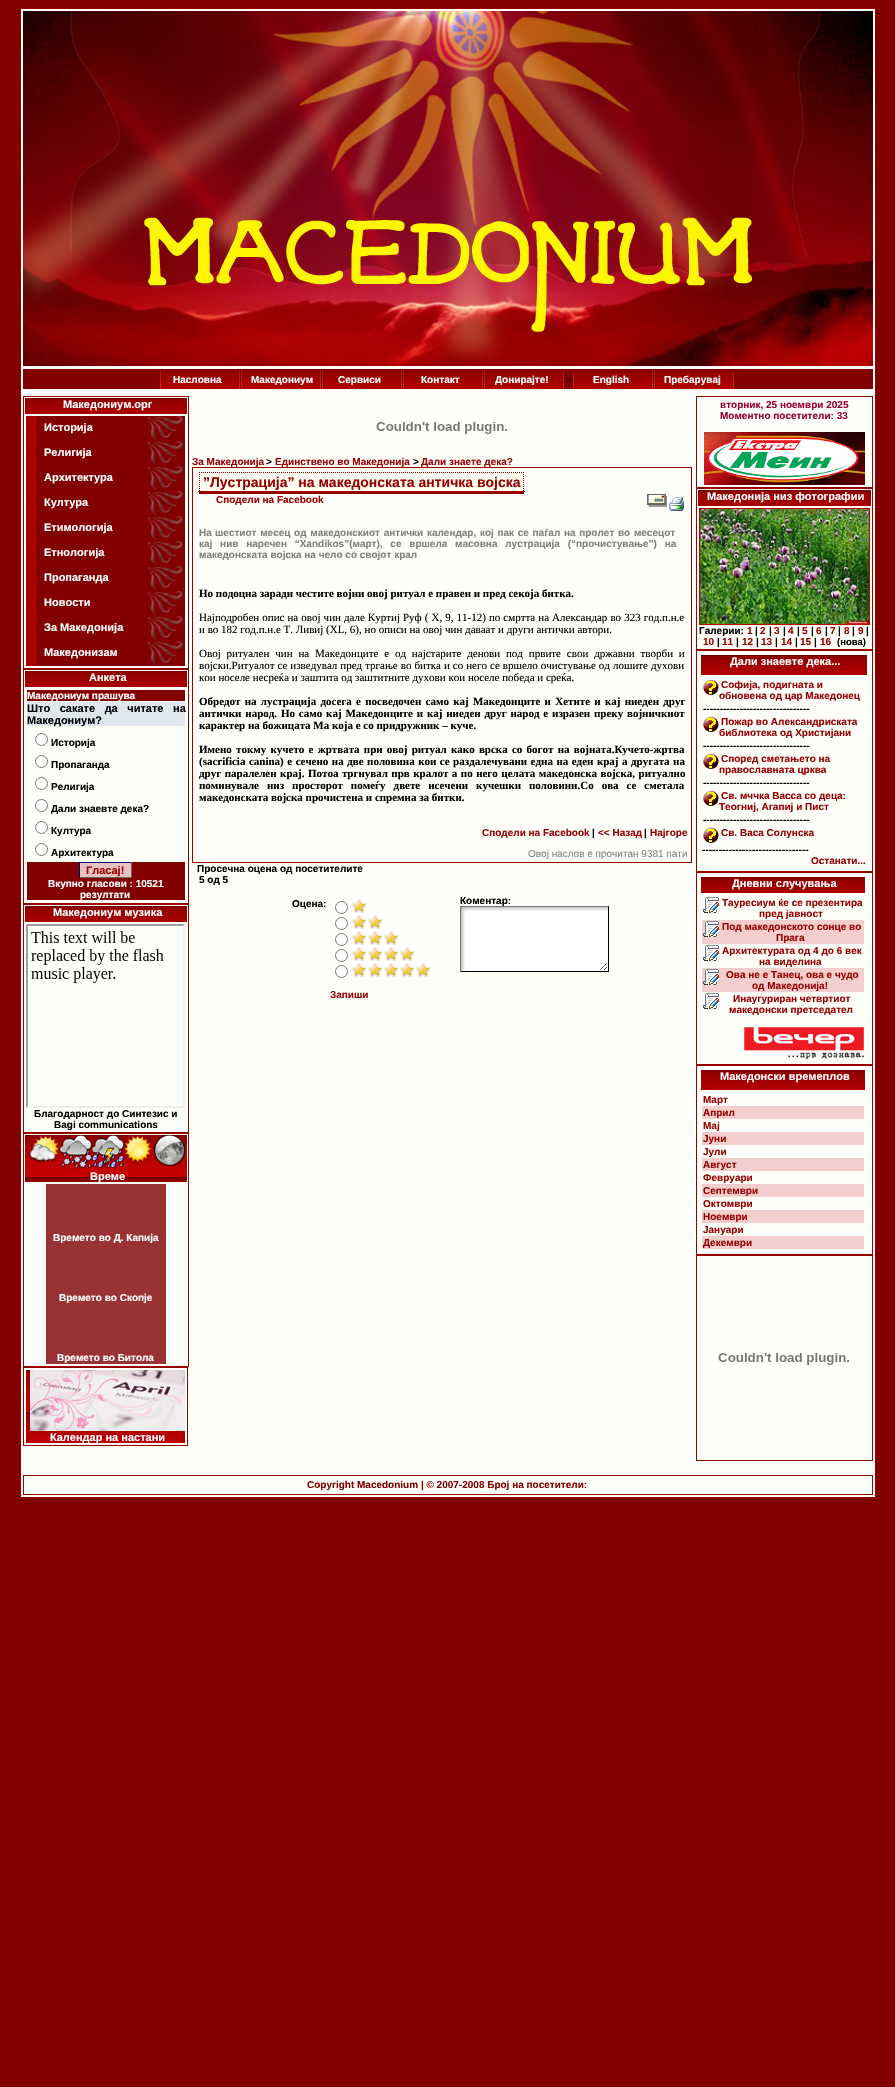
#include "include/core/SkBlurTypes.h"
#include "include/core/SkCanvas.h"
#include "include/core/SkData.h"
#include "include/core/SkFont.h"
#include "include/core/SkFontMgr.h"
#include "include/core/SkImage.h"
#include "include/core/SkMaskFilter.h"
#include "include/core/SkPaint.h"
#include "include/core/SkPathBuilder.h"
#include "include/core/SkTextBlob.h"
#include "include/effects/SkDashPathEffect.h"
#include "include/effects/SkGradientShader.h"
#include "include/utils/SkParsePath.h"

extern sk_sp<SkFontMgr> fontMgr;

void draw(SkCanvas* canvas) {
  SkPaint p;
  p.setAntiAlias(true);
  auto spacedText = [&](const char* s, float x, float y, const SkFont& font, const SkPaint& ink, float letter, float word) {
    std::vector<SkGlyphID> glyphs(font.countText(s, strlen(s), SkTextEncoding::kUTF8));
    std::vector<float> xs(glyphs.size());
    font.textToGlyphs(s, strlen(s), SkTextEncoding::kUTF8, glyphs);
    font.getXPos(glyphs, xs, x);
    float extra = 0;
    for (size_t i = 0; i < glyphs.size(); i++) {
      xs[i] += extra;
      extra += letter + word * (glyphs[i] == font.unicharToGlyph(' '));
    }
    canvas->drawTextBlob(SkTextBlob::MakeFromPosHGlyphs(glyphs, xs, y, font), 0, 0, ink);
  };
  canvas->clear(SkColorSetRGB(131, 0, 0));
  p.setColor(SkColorSetRGB(255, 255, 249));
  canvas->drawRect(SkRect::MakeLTRB(20.5f, 8.5f, 875.5f, 1497.5f), p);
  p.setStyle(SkPaint::kStroke_Style);
  p.setStrokeWidth(1);
  p.setColor(SkColorSetRGB(153, 0, 0));
  canvas->drawRect(SkRect::MakeLTRB(20.5f, 8.5f, 875.5f, 1497.5f), p);
  canvas->drawImageRect(SkImages::DeferredFromEncodedData(SkData::MakeFromFileName("images/1.png")), SkRect::MakeLTRB(23, 11, 873, 366), SkSamplingOptions());
  p.setStyle(SkPaint::kFill_Style);
  p.setColor(SkColorSetRGB(131, 0, 0));
  canvas->drawRect(SkRect::MakeLTRB(23, 369, 873, 389), p);
  canvas->drawImageRect(SkImages::DeferredFromEncodedData(SkData::MakeFromFileName("images/2.png")), SkRect::MakeLTRB(160, 369, 164, 389), SkSamplingOptions());
  canvas->drawImageRect(SkImages::DeferredFromEncodedData(SkData::MakeFromFileName("images/3.png")), SkRect::MakeLTRB(164, 369, 240, 389), SkSamplingOptions());
  canvas->drawImageRect(SkImages::DeferredFromEncodedData(SkData::MakeFromFileName("images/2.png")), SkRect::MakeLTRB(241, 369, 245, 389), SkSamplingOptions());
  canvas->drawImageRect(SkImages::DeferredFromEncodedData(SkData::MakeFromFileName("images/3.png")), SkRect::MakeLTRB(245, 369, 321, 389), SkSamplingOptions());
  canvas->drawImageRect(SkImages::DeferredFromEncodedData(SkData::MakeFromFileName("images/2.png")), SkRect::MakeLTRB(322, 369, 326, 389), SkSamplingOptions());
  canvas->drawImageRect(SkImages::DeferredFromEncodedData(SkData::MakeFromFileName("images/3.png")), SkRect::MakeLTRB(326, 369, 402, 389), SkSamplingOptions());
  canvas->drawImageRect(SkImages::DeferredFromEncodedData(SkData::MakeFromFileName("images/2.png")), SkRect::MakeLTRB(403, 369, 407, 389), SkSamplingOptions());
  canvas->drawImageRect(SkImages::DeferredFromEncodedData(SkData::MakeFromFileName("images/3.png")), SkRect::MakeLTRB(407, 369, 483, 389), SkSamplingOptions());
  canvas->drawImageRect(SkImages::DeferredFromEncodedData(SkData::MakeFromFileName("images/2.png")), SkRect::MakeLTRB(484, 369, 488, 389), SkSamplingOptions());
  canvas->drawImageRect(SkImages::DeferredFromEncodedData(SkData::MakeFromFileName("images/3.png")), SkRect::MakeLTRB(488, 369, 564, 389), SkSamplingOptions());
  canvas->drawImageRect(SkImages::DeferredFromEncodedData(SkData::MakeFromFileName("images/2.png")), SkRect::MakeLTRB(573, 369, 577, 389), SkSamplingOptions());
  canvas->drawImageRect(SkImages::DeferredFromEncodedData(SkData::MakeFromFileName("images/3.png")), SkRect::MakeLTRB(577, 369, 653, 389), SkSamplingOptions());
  canvas->drawImageRect(SkImages::DeferredFromEncodedData(SkData::MakeFromFileName("images/2.png")), SkRect::MakeLTRB(654, 369, 658, 389), SkSamplingOptions());
  canvas->drawImageRect(SkImages::DeferredFromEncodedData(SkData::MakeFromFileName("images/3.png")), SkRect::MakeLTRB(658, 369, 734, 389), SkSamplingOptions());
  p.setStyle(SkPaint::kStroke_Style);
  p.setColor(SkColorSetRGB(153, 0, 0));
  canvas->drawRect(SkRect::MakeLTRB(23.5f, 396.5f, 188.5f, 668.5f), p);
  canvas->drawImageRect(SkImages::DeferredFromEncodedData(SkData::MakeFromFileName("images/4.png")), SkRect::MakeLTRB(25, 398, 187, 414), SkSamplingOptions());
  canvas->drawImageRect(SkImages::DeferredFromEncodedData(SkData::MakeFromFileName("images/5.png")), SkRect::MakeLTRB(26, 416, 185, 441), SkSamplingOptions());
  canvas->drawImageRect(SkImages::DeferredFromEncodedData(SkData::MakeFromFileName("images/5.png")), SkRect::MakeLTRB(26, 441, 185, 466), SkSamplingOptions());
  canvas->drawImageRect(SkImages::DeferredFromEncodedData(SkData::MakeFromFileName("images/5.png")), SkRect::MakeLTRB(26, 466, 185, 491), SkSamplingOptions());
  canvas->drawImageRect(SkImages::DeferredFromEncodedData(SkData::MakeFromFileName("images/5.png")), SkRect::MakeLTRB(26, 491, 185, 516), SkSamplingOptions());
  canvas->drawImageRect(SkImages::DeferredFromEncodedData(SkData::MakeFromFileName("images/5.png")), SkRect::MakeLTRB(26, 516, 185, 541), SkSamplingOptions());
  canvas->drawImageRect(SkImages::DeferredFromEncodedData(SkData::MakeFromFileName("images/5.png")), SkRect::MakeLTRB(26, 541, 185, 566), SkSamplingOptions());
  canvas->drawImageRect(SkImages::DeferredFromEncodedData(SkData::MakeFromFileName("images/5.png")), SkRect::MakeLTRB(26, 566, 185, 591), SkSamplingOptions());
  canvas->drawImageRect(SkImages::DeferredFromEncodedData(SkData::MakeFromFileName("images/5.png")), SkRect::MakeLTRB(26, 591, 185, 616), SkSamplingOptions());
  canvas->drawImageRect(SkImages::DeferredFromEncodedData(SkData::MakeFromFileName("images/5.png")), SkRect::MakeLTRB(26, 616, 185, 641), SkSamplingOptions());
  canvas->drawImageRect(SkImages::DeferredFromEncodedData(SkData::MakeFromFileName("images/5.png")), SkRect::MakeLTRB(26, 641, 185, 666), SkSamplingOptions());
  canvas->drawRect(SkRect::MakeLTRB(23.5f, 669.5f, 188.5f, 903.5f), p);
  canvas->drawImageRect(SkImages::DeferredFromEncodedData(SkData::MakeFromFileName("images/4.png")), SkRect::MakeLTRB(25, 671, 187, 687), SkSamplingOptions());
  p.setStyle(SkPaint::kFill_Style);
  p.setColor(SkColorSetRGB(131, 0, 0));
  canvas->drawRect(SkRect::MakeLTRB(27, 690, 185, 701), p);
  p.setColor(SkColorSetRGB(224, 231, 236));
  canvas->drawRect(SkRect::MakeLTRB(27, 702, 185, 726), p);
  p.setColor(SK_ColorWHITE);
  canvas->drawCircle(41.5f, 739.5f, 6, p);
  p.setStyle(SkPaint::kStroke_Style);
  p.setColor(SkColorSetRGB(118, 118, 118));
  canvas->drawCircle(41.5f, 739.5f, 6, p);
  p.setStyle(SkPaint::kFill_Style);
  p.setColor(SK_ColorWHITE);
  canvas->drawCircle(41.5f, 761.5f, 6, p);
  p.setStyle(SkPaint::kStroke_Style);
  p.setColor(SkColorSetRGB(118, 118, 118));
  canvas->drawCircle(41.5f, 761.5f, 6, p);
  p.setStyle(SkPaint::kFill_Style);
  p.setColor(SK_ColorWHITE);
  canvas->drawCircle(41.5f, 783.5f, 6, p);
  p.setStyle(SkPaint::kStroke_Style);
  p.setColor(SkColorSetRGB(118, 118, 118));
  canvas->drawCircle(41.5f, 783.5f, 6, p);
  p.setStyle(SkPaint::kFill_Style);
  p.setColor(SK_ColorWHITE);
  canvas->drawCircle(41.5f, 805.5f, 6, p);
  p.setStyle(SkPaint::kStroke_Style);
  p.setColor(SkColorSetRGB(118, 118, 118));
  canvas->drawCircle(41.5f, 805.5f, 6, p);
  p.setStyle(SkPaint::kFill_Style);
  p.setColor(SK_ColorWHITE);
  canvas->drawCircle(41.5f, 827.5f, 6, p);
  p.setStyle(SkPaint::kStroke_Style);
  p.setColor(SkColorSetRGB(118, 118, 118));
  canvas->drawCircle(41.5f, 827.5f, 6, p);
  p.setStyle(SkPaint::kFill_Style);
  p.setColor(SK_ColorWHITE);
  canvas->drawCircle(41.5f, 849.5f, 6, p);
  p.setStyle(SkPaint::kStroke_Style);
  p.setColor(SkColorSetRGB(118, 118, 118));
  canvas->drawCircle(41.5f, 849.5f, 6, p);
  p.setStyle(SkPaint::kFill_Style);
  p.setColor(SkColorSetRGB(131, 0, 0));
  canvas->drawRect(SkRect::MakeLTRB(27, 862, 185, 900), p);
  p.setColor(SkColorSetRGB(232, 193, 194));
  canvas->drawRect(SkRect::MakeLTRB(80, 863, 131, 877), p);
  p.setColor(SkColorSetRGB(0, 0, 102));
  canvas->drawRect(SkRect::MakeLTRB(79, 862, 132, 863), p);
  p.setColor(SkColorSetRGB(102, 102, 102));
  canvas->drawRect(SkRect::MakeLTRB(131, 862, 132, 878), p);
  canvas->drawRect(SkRect::MakeLTRB(79, 877, 132, 878), p);
  p.setColor(SkColorSetRGB(0, 0, 102));
  canvas->drawRect(SkRect::MakeLTRB(79, 862, 80, 878), p);
  p.setStyle(SkPaint::kStroke_Style);
  p.setColor(SkColorSetRGB(153, 0, 0));
  canvas->drawRect(SkRect::MakeLTRB(23.5f, 904.5f, 188.5f, 1132.5f), p);
  canvas->drawImageRect(SkImages::DeferredFromEncodedData(SkData::MakeFromFileName("images/4.png")), SkRect::MakeLTRB(25, 906, 187, 922), SkSamplingOptions());
  p.setStyle(SkPaint::kFill_Style);
  p.setColor(SkColorSetRGB(159, 159, 159));
  canvas->drawPath(SkPathBuilder().moveTo(26, 924).lineTo(185, 924).lineTo(183, 926).lineTo(28, 926).close().detach(), p);
  p.setColor(SkColorSetRGB(238, 238, 238));
  canvas->drawPath(SkPathBuilder().moveTo(185, 924).lineTo(185, 1108).lineTo(183, 1106).lineTo(183, 926).close().detach(), p);
  canvas->drawPath(SkPathBuilder().moveTo(185, 1108).lineTo(26, 1108).lineTo(28, 1106).lineTo(183, 1106).close().detach(), p);
  p.setColor(SkColorSetRGB(159, 159, 159));
  canvas->drawPath(SkPathBuilder().moveTo(26, 1108).lineTo(26, 924).lineTo(28, 926).lineTo(28, 1106).close().detach(), p);
  canvas->drawImageRect(SkImages::DeferredFromEncodedData(SkData::MakeFromFileName("images/6.png")), SkRect::MakeLTRB(31, 931, 164, 983), SkSamplingOptions());
  p.setStyle(SkPaint::kStroke_Style);
  p.setColor(SkColorSetRGB(153, 0, 0));
  canvas->drawRect(SkRect::MakeLTRB(23.5f, 1133.5f, 188.5f, 1366.5f), p);
  canvas->drawImageRect(SkImages::DeferredFromEncodedData(SkData::MakeFromFileName("images/7.png")), SkRect::MakeLTRB(25, 1135, 187, 1182), SkSamplingOptions());
  canvas->drawImageRect(SkImages::DeferredFromEncodedData(SkData::MakeFromFileName("images/8.png")), SkRect::MakeLTRB(30, 1135, 185, 1169), SkSamplingOptions());
  p.setStyle(SkPaint::kFill_Style);
  p.setColor(SkColorSetRGB(153, 51, 51));
  canvas->drawRect(SkRect::MakeLTRB(46, 1184, 166, 1364), p);
  p.setStyle(SkPaint::kStroke_Style);
  p.setColor(SkColorSetRGB(153, 0, 0));
  canvas->drawRect(SkRect::MakeLTRB(23.5f, 1367.5f, 187.5f, 1445.5f), p);
  canvas->drawImageRect(SkImages::DeferredFromEncodedData(SkData::MakeFromFileName("images/9.png")), SkRect::MakeLTRB(26, 1370, 185, 1443), SkSamplingOptions());
  canvas->drawImageRect(SkImages::DeferredFromEncodedData(SkData::MakeFromFileName("images/10.png")), SkRect::MakeLTRB(30, 1370, 185, 1431), SkSamplingOptions());
  canvas->drawImageRect(SkImages::DeferredFromEncodedData(SkData::MakeFromFileName("images/11.png")), SkRect::MakeLTRB(376, 422, 507, 434), SkSamplingOptions());
  canvas->drawRect(SkRect::MakeLTRB(192.5f, 467.5f, 691.5f, 862.5f), p);
  p.setStyle(SkPaint::kFill_Style);
  p.setColor(SkColorSetRGB(131, 0, 0));
  canvas->drawRect(SkRect::MakeLTRB(198, 491, 525, 492), p);
  p.setColor(SkColorSetRGB(255, 253, 240));
  canvas->drawRect(SkRect::MakeLTRB(199, 472, 524, 491), p);
  p.setStyle(SkPaint::kStroke_Style);
  p.setColor(SkColorSetRGB(153, 0, 0));
  p.setPathEffect(SkDashPathEffect::Make({{1, 1}}, 0));
  canvas->drawPath(SkPathBuilder().moveTo(199, 472.5f).lineTo(524, 472.5f).detach(), p);
  p.setPathEffect(nullptr);
  p.setPathEffect(SkDashPathEffect::Make({{1, 1}}, 0));
  canvas->drawPath(SkPathBuilder().moveTo(523.5f, 472).lineTo(523.5f, 494).detach(), p);
  p.setPathEffect(nullptr);
  p.setStyle(SkPaint::kFill_Style);
  canvas->drawRect(SkRect::MakeLTRB(199, 491, 524, 494), p);
  p.setStyle(SkPaint::kStroke_Style);
  p.setPathEffect(SkDashPathEffect::Make({{1, 1}}, 0));
  canvas->drawPath(SkPathBuilder().moveTo(199.5f, 472).lineTo(199.5f, 494).detach(), p);
  p.setPathEffect(nullptr);
  canvas->drawImageRect(SkImages::DeferredFromEncodedData(SkData::MakeFromFileName("images/12.png")), SkRect::MakeLTRB(647, 494, 667, 507), SkSamplingOptions());
  canvas->drawImageRect(SkImages::DeferredFromEncodedData(SkData::MakeFromFileName("images/13.png")), SkRect::MakeLTRB(669, 497, 684, 511), SkSamplingOptions());
  p.setStyle(SkPaint::kFill_Style);
  p.setColor(SK_ColorWHITE);
  canvas->drawCircle(341.5f, 907.5f, 6, p);
  p.setStyle(SkPaint::kStroke_Style);
  p.setColor(SkColorSetRGB(118, 118, 118));
  canvas->drawCircle(341.5f, 907.5f, 6, p);
  canvas->drawImageRect(SkImages::DeferredFromEncodedData(SkData::MakeFromFileName("images/14.png")), SkRect::MakeLTRB(351, 898, 367, 914), SkSamplingOptions());
  p.setStyle(SkPaint::kFill_Style);
  p.setColor(SK_ColorWHITE);
  canvas->drawCircle(341.5f, 923.5f, 6, p);
  p.setStyle(SkPaint::kStroke_Style);
  p.setColor(SkColorSetRGB(118, 118, 118));
  canvas->drawCircle(341.5f, 923.5f, 6, p);
  canvas->drawImageRect(SkImages::DeferredFromEncodedData(SkData::MakeFromFileName("images/14.png")), SkRect::MakeLTRB(351, 914, 367, 930), SkSamplingOptions());
  canvas->drawImageRect(SkImages::DeferredFromEncodedData(SkData::MakeFromFileName("images/14.png")), SkRect::MakeLTRB(367, 914, 383, 930), SkSamplingOptions());
  p.setStyle(SkPaint::kFill_Style);
  p.setColor(SK_ColorWHITE);
  canvas->drawCircle(341.5f, 939.5f, 6, p);
  p.setStyle(SkPaint::kStroke_Style);
  p.setColor(SkColorSetRGB(118, 118, 118));
  canvas->drawCircle(341.5f, 939.5f, 6, p);
  canvas->drawImageRect(SkImages::DeferredFromEncodedData(SkData::MakeFromFileName("images/14.png")), SkRect::MakeLTRB(351, 930, 367, 946), SkSamplingOptions());
  canvas->drawImageRect(SkImages::DeferredFromEncodedData(SkData::MakeFromFileName("images/14.png")), SkRect::MakeLTRB(367, 930, 383, 946), SkSamplingOptions());
  canvas->drawImageRect(SkImages::DeferredFromEncodedData(SkData::MakeFromFileName("images/14.png")), SkRect::MakeLTRB(383, 930, 399, 946), SkSamplingOptions());
  p.setStyle(SkPaint::kFill_Style);
  p.setColor(SK_ColorWHITE);
  canvas->drawCircle(341.5f, 955.5f, 6, p);
  p.setStyle(SkPaint::kStroke_Style);
  p.setColor(SkColorSetRGB(118, 118, 118));
  canvas->drawCircle(341.5f, 955.5f, 6, p);
  canvas->drawImageRect(SkImages::DeferredFromEncodedData(SkData::MakeFromFileName("images/14.png")), SkRect::MakeLTRB(351, 946, 367, 962), SkSamplingOptions());
  canvas->drawImageRect(SkImages::DeferredFromEncodedData(SkData::MakeFromFileName("images/14.png")), SkRect::MakeLTRB(367, 946, 383, 962), SkSamplingOptions());
  canvas->drawImageRect(SkImages::DeferredFromEncodedData(SkData::MakeFromFileName("images/14.png")), SkRect::MakeLTRB(383, 946, 399, 962), SkSamplingOptions());
  canvas->drawImageRect(SkImages::DeferredFromEncodedData(SkData::MakeFromFileName("images/14.png")), SkRect::MakeLTRB(399, 946, 415, 962), SkSamplingOptions());
  p.setStyle(SkPaint::kFill_Style);
  p.setColor(SK_ColorWHITE);
  canvas->drawCircle(341.5f, 971.5f, 6, p);
  p.setStyle(SkPaint::kStroke_Style);
  p.setColor(SkColorSetRGB(118, 118, 118));
  canvas->drawCircle(341.5f, 971.5f, 6, p);
  canvas->drawImageRect(SkImages::DeferredFromEncodedData(SkData::MakeFromFileName("images/14.png")), SkRect::MakeLTRB(351, 962, 367, 978), SkSamplingOptions());
  canvas->drawImageRect(SkImages::DeferredFromEncodedData(SkData::MakeFromFileName("images/14.png")), SkRect::MakeLTRB(367, 962, 383, 978), SkSamplingOptions());
  canvas->drawImageRect(SkImages::DeferredFromEncodedData(SkData::MakeFromFileName("images/14.png")), SkRect::MakeLTRB(383, 962, 399, 978), SkSamplingOptions());
  canvas->drawImageRect(SkImages::DeferredFromEncodedData(SkData::MakeFromFileName("images/14.png")), SkRect::MakeLTRB(399, 962, 415, 978), SkSamplingOptions());
  canvas->drawImageRect(SkImages::DeferredFromEncodedData(SkData::MakeFromFileName("images/14.png")), SkRect::MakeLTRB(415, 962, 431, 978), SkSamplingOptions());
  canvas->drawImageRect(SkImages::DeferredFromEncodedData(SkData::MakeFromFileName("images/15.png")), SkRect::MakeLTRB(461, 907, 608, 971), SkSamplingOptions());
  p.setColor(SkColorSetRGB(153, 0, 0));
  canvas->drawRect(SkRect::MakeLTRB(696.5f, 396.5f, 872.5f, 487.5f), p);
  canvas->drawImageRect(SkImages::DeferredFromEncodedData(SkData::MakeFromFileName("images/16.png")), SkRect::MakeLTRB(704, 432, 865, 485), SkSamplingOptions());
  canvas->drawRect(SkRect::MakeLTRB(696.5f, 488.5f, 872.5f, 649.5f), p);
  canvas->drawImageRect(SkImages::DeferredFromEncodedData(SkData::MakeFromFileName("images/17.png")), SkRect::MakeLTRB(698, 490, 871, 506), SkSamplingOptions());
  p.setColor(SkColorSetRGB(192, 0, 0));
  canvas->drawRect(SkRect::MakeLTRB(699.5f, 508.5f, 869.5f, 624.5f), p);
  canvas->drawImageRect(SkImages::DeferredFromEncodedData(SkData::MakeFromFileName("images/18.png")), SkRect::MakeLTRB(700, 509, 869, 624), SkSamplingOptions());
  p.setColor(SkColorSetRGB(153, 0, 0));
  canvas->drawRect(SkRect::MakeLTRB(696.5f, 650.5f, 872.5f, 871.5f), p);
  canvas->drawImageRect(SkImages::DeferredFromEncodedData(SkData::MakeFromFileName("images/19.png")), SkRect::MakeLTRB(701, 655, 867, 675), SkSamplingOptions());
  canvas->drawImageRect(SkImages::DeferredFromEncodedData(SkData::MakeFromFileName("images/20.png")), SkRect::MakeLTRB(703, 679, 719, 695), SkSamplingOptions());
  canvas->drawImageRect(SkImages::DeferredFromEncodedData(SkData::MakeFromFileName("images/20.png")), SkRect::MakeLTRB(703, 716, 719, 732), SkSamplingOptions());
  canvas->drawImageRect(SkImages::DeferredFromEncodedData(SkData::MakeFromFileName("images/20.png")), SkRect::MakeLTRB(703, 753, 719, 769), SkSamplingOptions());
  canvas->drawImageRect(SkImages::DeferredFromEncodedData(SkData::MakeFromFileName("images/20.png")), SkRect::MakeLTRB(703, 790, 719, 806), SkSamplingOptions());
  canvas->drawImageRect(SkImages::DeferredFromEncodedData(SkData::MakeFromFileName("images/20.png")), SkRect::MakeLTRB(703, 827, 719, 843), SkSamplingOptions());
  canvas->drawRect(SkRect::MakeLTRB(696.5f, 872.5f, 872.5f, 1064.5f), p);
  canvas->drawImageRect(SkImages::DeferredFromEncodedData(SkData::MakeFromFileName("images/21.png")), SkRect::MakeLTRB(701, 877, 865, 893), SkSamplingOptions());
  canvas->drawImageRect(SkImages::DeferredFromEncodedData(SkData::MakeFromFileName("images/22.png")), SkRect::MakeLTRB(703, 897, 719, 913), SkSamplingOptions());
  p.setStyle(SkPaint::kFill_Style);
  p.setColor(SkColorSetRGB(244, 205, 205));
  canvas->drawRect(SkRect::MakeLTRB(702, 920, 864, 944), p);
  canvas->drawImageRect(SkImages::DeferredFromEncodedData(SkData::MakeFromFileName("images/23.png")), SkRect::MakeLTRB(703, 921, 719, 937), SkSamplingOptions());
  canvas->drawImageRect(SkImages::DeferredFromEncodedData(SkData::MakeFromFileName("images/22.png")), SkRect::MakeLTRB(703, 945, 719, 961), SkSamplingOptions());
  canvas->drawRect(SkRect::MakeLTRB(702, 968, 864, 992), p);
  canvas->drawImageRect(SkImages::DeferredFromEncodedData(SkData::MakeFromFileName("images/23.png")), SkRect::MakeLTRB(703, 969, 719, 985), SkSamplingOptions());
  canvas->drawImageRect(SkImages::DeferredFromEncodedData(SkData::MakeFromFileName("images/22.png")), SkRect::MakeLTRB(703, 993, 719, 1009), SkSamplingOptions());
  canvas->drawImageRect(SkImages::DeferredFromEncodedData(SkData::MakeFromFileName("images/24.png")), SkRect::MakeLTRB(744, 1027, 864, 1059), SkSamplingOptions());
  p.setStyle(SkPaint::kStroke_Style);
  p.setColor(SkColorSetRGB(153, 0, 0));
  canvas->drawRect(SkRect::MakeLTRB(696.5f, 1065.5f, 872.5f, 1254.5f), p);
  canvas->drawImageRect(SkImages::DeferredFromEncodedData(SkData::MakeFromFileName("images/25.png")), SkRect::MakeLTRB(701, 1070, 865, 1090), SkSamplingOptions());
  p.setStyle(SkPaint::kFill_Style);
  p.setColor(SkColorSetRGB(244, 205, 205));
  canvas->drawRect(SkRect::MakeLTRB(702, 1106, 864, 1119), p);
  canvas->drawRect(SkRect::MakeLTRB(702, 1132, 864, 1145), p);
  canvas->drawRect(SkRect::MakeLTRB(702, 1158, 864, 1171), p);
  canvas->drawRect(SkRect::MakeLTRB(702, 1184, 864, 1197), p);
  canvas->drawRect(SkRect::MakeLTRB(702, 1210, 864, 1223), p);
  canvas->drawRect(SkRect::MakeLTRB(702, 1236, 864, 1249), p);
  p.setStyle(SkPaint::kStroke_Style);
  p.setColor(SkColorSetRGB(153, 0, 0));
  canvas->drawRect(SkRect::MakeLTRB(696.5f, 1255.5f, 872.5f, 1460.5f), p);
  canvas->drawImageRect(SkImages::DeferredFromEncodedData(SkData::MakeFromFileName("images/11.png")), SkRect::MakeLTRB(718, 1353, 849, 1365), SkSamplingOptions());
  canvas->drawRect(SkRect::MakeLTRB(23.5f, 1475.5f, 872.5f, 1494.5f), p);
  SkFont font1(fontMgr->matchFamilyStyle("Liberation Sans", SkFontStyle::Bold()), 10);
  font1.setSubpixel(true);
  p.setStyle(SkPaint::kFill_Style);
  p.setColor(SK_ColorWHITE);
  canvas->drawString("Насловна", 173, 383, font1, p);
  canvas->drawString("Македониум", 251, 383, font1, p);
  canvas->drawString("Сервиси", 338, 383, font1, p);
  canvas->drawString("Контакт", 421, 383, font1, p);
  canvas->drawString("Донирајте!", 495, 383, font1, p);
  SkFont font2(fontMgr->matchFamilyStyle("Liberation Sans", SkFontStyle::Bold()), 9);
  font2.setSubpixel(true);
  p.setColor(SK_ColorBLACK);
  canvas->drawString(":.:", 565, 382, font2, p);
  p.setColor(SK_ColorWHITE);
  canvas->drawString("English", 593, 383, font1, p);
  canvas->drawString("Пребарувај", 664, 383, font1, p);
  SkFont font3(fontMgr->matchFamilyStyle("Liberation Sans", SkFontStyle::Bold()), 11);
  font3.setSubpixel(true);
  canvas->drawString("Македониум.орг", 63, 408, font3, p);
  canvas->drawString("Историја", 44, 431, font3, p);
  canvas->drawString("Религија", 44, 456, font3, p);
  canvas->drawString("Архитектура", 44, 481, font3, p);
  canvas->drawString("Култура", 44, 506, font3, p);
  canvas->drawString("Етимологија", 44, 531, font3, p);
  canvas->drawString("Етнологија", 44, 556, font3, p);
  canvas->drawString("Пропаганда", 44, 581, font3, p);
  canvas->drawString("Новости", 44, 606, font3, p);
  canvas->drawString("За Македонија", 44, 631, font3, p);
  canvas->drawString("Македонизам", 44, 656, font3, p);
  canvas->drawString("Анкета", 89, 681, font3, p);
  canvas->drawString("Македониум прашува", 27, 699, font1, p);
  p.setColor(SK_ColorBLACK);
  spacedText("Што сакате да читате на", 27, 712, font3, p, 0, 6.5f);
  canvas->drawString("Македониум?", 27, 724, font3, p);
  canvas->drawString("Историја", 51, 746, font1, p);
  canvas->drawString("Пропаганда", 51, 768, font1, p);
  canvas->drawString("Религија", 51, 790, font1, p);
  canvas->drawString("Дали знаевте дека?", 51, 812, font1, p);
  canvas->drawString("Култура", 51, 834, font1, p);
  canvas->drawString("Архитектура", 51, 856, font1, p);
  p.setColor(SkColorSetRGB(153, 0, 0));
  canvas->drawString("Гласај!", 86, 874, font3, p);
  p.setColor(SK_ColorWHITE);
  canvas->drawString("Вкупно гласови : 10521", 48, 887, font1, p);
  canvas->drawString("резултати", 80, 898, font1, p);
  canvas->drawString("Македониум музика", 53, 916, font3, p);
  p.setColor(SK_ColorBLACK);
  canvas->drawString("Благодарност до Синтезис и", 34, 1117, font1, p);
  canvas->drawString("Bagi communications", 54, 1128, font1, p);
  p.setColor(SK_ColorWHITE);
  canvas->drawString("Време", 90, 1180, font3, p);
  canvas->drawString("Времето во Д. Капија", 53, 1241, font1, p);
  canvas->drawString("Времето во Скопје", 59, 1301, font1, p);
  canvas->drawString("Времето во Битола", 57, 1361, font1, p);
  canvas->drawString("Календар на настани", 50, 1441, font3, p);
  p.setColor(SkColorSetRGB(153, 0, 0));
  canvas->drawString("За Македонија", 192, 465, font1, p);
  p.setColor(SK_ColorBLACK);
  canvas->drawString(">", 266, 465, font1, p);
  p.setColor(SkColorSetRGB(153, 0, 0));
  canvas->drawString("Единствено во Македонија", 275, 465, font1, p);
  p.setColor(SK_ColorBLACK);
  canvas->drawString(">", 413, 465, font1, p);
  p.setColor(SkColorSetRGB(153, 0, 0));
  canvas->drawString("Дали знаете дека?", 421, 465, font1, p);
  SkFont font4(fontMgr->matchFamilyStyle("Liberation Sans", SkFontStyle::Bold()), 14);
  font4.setSubpixel(true);
  canvas->drawString("”Лустрација” на македонската античка војска", 203, 487, font4, p);
  canvas->drawString("Сподели на Facebook", 216, 503, font1, p);
  p.setColor(SkColorSetRGB(128, 128, 128));
  canvas->drawString("На", 199, 536, font1, p);
  spacedText("шестиот месец од македонскиот антички календар, кој пак се паѓал на пролет во месецот", 215, 536, font1, p, 0, 0.9f);
  spacedText("кај нив наречен “Xandikos”(март), се вршела масовна лустрација (“прочистување”) на", 199, 547, font1, p, 0, 5);
  canvas->drawString("македонската војска на чело со својот крал", 199, 558, font1, p);
  SkFont font5(fontMgr->matchFamilyStyle("Liberation Serif", SkFontStyle::Bold()), 11);
  font5.setSubpixel(true);
  p.setColor(SK_ColorBLACK);
  canvas->drawString("Но подоцна заради честите војни овој ритуал е правен и пред секоја битка.", 199, 597, font5, p);
  SkFont font6(fontMgr->matchFamilyStyle("Liberation Serif", SkFontStyle::Normal()), 11);
  font6.setSubpixel(true);
  spacedText("Најподробен опис на овој чин дале Куртиј Руф ( X, 9, 11-12) по смртта на Александар во 323 год.п.н.е", 199, 621, font6, p, 0, 0.3f);
  canvas->drawString("и во 182 год.п.н.е Т. Ливиј (XL, 6), но описи на овој чин даваат и други антички автори.", 199, 633, font6, p);
  spacedText("Овој ритуален чин на Македонците е од најстарите денови под првите свои државни творби и", 199, 657, font6, p, 0, 3.1f);
  spacedText("војски.Ритуалот се изведувал пред тргање во битка и со него се вршело очистување од лошите духови", 199, 669, font6, p, 0, 0.25f);
  canvas->drawString("кои носеле несреќа и заштита од заштитните духови кои носеле победа и среќа.", 199, 681, font6, p);
  spacedText("Обредот на лустрација досега е посведочен само кај Македонците и Хетите и кај ниеден друг", 199, 705, font5, p, 0, 1.5f);
  spacedText("антички народ. Но само кај Македонците и кај ниеден друг народ е изразен преку војничкиот", 199, 717, font5, p, 0, 1.1f);
  canvas->drawString("карактер на божицата Ма која е со придружник – куче.", 199, 729, font5, p);
  spacedText("Имено токму кучето е жртвата при овој ритуал како врска со богот на војната.Кучето-жртва", 199, 753, font5, p, 0, 1.5f);
  spacedText("(sacrificia canina) е сечено на две половина кои се раздалечувани една на еден крај а другата на", 199, 765, font5, p, 0, 0.75f);
  spacedText("друг паралелен крај. Потоа тргнувал прв кралот а по него целата македонска војска, ритуално", 199, 777, font5, p, 0, 0.75f);
  spacedText("поминувале низ просторот помеѓу двете исечени кучешки половини.Со ова се сметала", 199, 789, font5, p, 0, 5.25f);
  canvas->drawString("македонската војска прочистена и спремна за битки.", 199, 801, font5, p);
  p.setColor(SkColorSetRGB(153, 0, 0));
  canvas->drawString("Сподели на Facebook", 482, 836, font1, p);
  p.setColor(SK_ColorBLACK);
  canvas->drawString("|", 592, 836, font1, p);
  p.setColor(SkColorSetRGB(153, 0, 0));
  canvas->drawString("<< Назад", 598, 836, font1, p);
  p.setColor(SK_ColorBLACK);
  canvas->drawString("|", 644, 836, font1, p);
  p.setColor(SkColorSetRGB(153, 0, 0));
  canvas->drawString("Најгоре", 650, 836, font1, p);
  SkFont font7(fontMgr->matchFamilyStyle("Liberation Sans", SkFontStyle::Normal()), 10);
  font7.setSubpixel(true);
  p.setColor(SkColorSetRGB(128, 128, 128));
  canvas->drawString("Овој наслов е прочитан 9381 пати", 528, 857, font7, p);
  p.setColor(SK_ColorBLACK);
  canvas->drawString("Просечна оцена од посетителите", 197, 872, font1, p);
  canvas->drawString("5 од 5", 199, 883, font1, p);
  canvas->drawString("Оцена:", 292, 907, font1, p);
  p.setColor(SkColorSetRGB(153, 0, 0));
  canvas->drawString("Запиши", 330, 998, font1, p);
  p.setColor(SK_ColorBLACK);
  canvas->drawString("Коментар:", 460, 904, font1, p);
  p.setColor(SkColorSetRGB(118, 118, 118));
  canvas->drawRect(SkRect::MakeLTRB(460, 906, 609, 907), p);
  p.setColor(SK_ColorBLACK);
  canvas->drawRect(SkRect::MakeLTRB(608, 906, 609, 972), p);
  canvas->drawRect(SkRect::MakeLTRB(460, 971, 609, 972), p);
  p.setColor(SkColorSetRGB(118, 118, 118));
  canvas->drawRect(SkRect::MakeLTRB(460, 906, 461, 972), p);
  p.setColor(SkColorSetRGB(153, 0, 51));
  canvas->drawString("вторник, 25 ноември 2025", 720, 408, font1, p);
  canvas->drawString("Моментно посетители: 33", 720, 419, font1, p);
  p.setColor(SK_ColorWHITE);
  canvas->drawString("Македонија низ фотографии", 707, 500, font3, p);
  p.setColor(SK_ColorBLACK);
  canvas->drawString("Галерии:", 699, 634, font1, p);
  p.setColor(SkColorSetRGB(153, 0, 0));
  canvas->drawString("1", 747, 634, font1, p);
  p.setColor(SK_ColorBLACK);
  canvas->drawString("|", 755, 634, font1, p);
  p.setColor(SkColorSetRGB(153, 0, 0));
  canvas->drawString("2", 760, 634, font1, p);
  p.setColor(SK_ColorBLACK);
  canvas->drawString("|", 769, 634, font1, p);
  p.setColor(SkColorSetRGB(153, 0, 0));
  canvas->drawString("3", 774, 634, font1, p);
  p.setColor(SK_ColorBLACK);
  canvas->drawString("|", 783, 634, font1, p);
  p.setColor(SkColorSetRGB(153, 0, 0));
  canvas->drawString("4", 788, 634, font1, p);
  p.setColor(SK_ColorBLACK);
  canvas->drawString("|", 797, 634, font1, p);
  p.setColor(SkColorSetRGB(153, 0, 0));
  canvas->drawString("5", 802, 634, font1, p);
  p.setColor(SK_ColorBLACK);
  canvas->drawString("|", 811, 634, font1, p);
  p.setColor(SkColorSetRGB(153, 0, 0));
  canvas->drawString("6", 816, 634, font1, p);
  p.setColor(SK_ColorBLACK);
  canvas->drawString("|", 825, 634, font1, p);
  p.setColor(SkColorSetRGB(153, 0, 0));
  canvas->drawString("7", 830, 634, font1, p);
  p.setColor(SK_ColorBLACK);
  canvas->drawString("|", 838, 634, font1, p);
  p.setColor(SkColorSetRGB(153, 0, 0));
  canvas->drawString("8", 844, 634, font1, p);
  p.setColor(SK_ColorBLACK);
  canvas->drawString("|", 852, 634, font1, p);
  p.setColor(SkColorSetRGB(153, 0, 0));
  canvas->drawString("9", 858, 634, font1, p);
  p.setColor(SK_ColorBLACK);
  canvas->drawString("|", 866, 634, font1, p);
  p.setColor(SkColorSetRGB(153, 0, 0));
  canvas->drawString("10", 703, 645, font1, p);
  p.setColor(SK_ColorBLACK);
  canvas->drawString("|", 717, 645, font1, p);
  p.setColor(SkColorSetRGB(153, 0, 0));
  canvas->drawString("11", 722, 645, font1, p);
  p.setColor(SK_ColorBLACK);
  canvas->drawString("|", 736, 645, font1, p);
  p.setColor(SkColorSetRGB(153, 0, 0));
  canvas->drawString("12", 742, 645, font1, p);
  p.setColor(SK_ColorBLACK);
  canvas->drawString("|", 756, 645, font1, p);
  p.setColor(SkColorSetRGB(153, 0, 0));
  canvas->drawString("13", 761, 645, font1, p);
  p.setColor(SK_ColorBLACK);
  canvas->drawString("|", 775, 645, font1, p);
  p.setColor(SkColorSetRGB(153, 0, 0));
  canvas->drawString("14", 781, 645, font1, p);
  p.setColor(SK_ColorBLACK);
  canvas->drawString("|", 795, 645, font1, p);
  p.setColor(SkColorSetRGB(153, 0, 0));
  canvas->drawString("15", 800, 645, font1, p);
  p.setColor(SK_ColorBLACK);
  canvas->drawString("|", 814, 645, font1, p);
  p.setColor(SkColorSetRGB(153, 0, 0));
  canvas->drawString("16", 820, 645, font1, p);
  SkFont font8(fontMgr->matchFamilyStyle("Liberation Sans", SkFontStyle::Bold()), 9.5f);
  font8.setSubpixel(true);
  p.setColor(SK_ColorBLACK);
  canvas->drawString("(нова)", 837, 645, font8, p);
  p.setColor(SK_ColorWHITE);
  canvas->drawString("Дали знаевте дека...", 730, 665, font3, p);
  p.setColor(SkColorSetRGB(153, 0, 0));
  canvas->drawString("Софија, подигната и", 721, 688, font1, p);
  canvas->drawString("обновена од цар Македонец", 719, 699, font1, p);
  p.setColor(SK_ColorBLACK);
  canvas->drawString("--------------------------------", 703, 712, font1, p);
  p.setColor(SkColorSetRGB(153, 0, 0));
  canvas->drawString("Пожар во Александриската", 721, 725, font1, p);
  canvas->drawString("библиотека од Христијани", 719, 736, font1, p);
  p.setColor(SK_ColorBLACK);
  canvas->drawString("--------------------------------", 703, 749, font1, p);
  p.setColor(SkColorSetRGB(153, 0, 0));
  canvas->drawString("Според сметањето на", 721, 762, font1, p);
  canvas->drawString("православната црква", 719, 773, font1, p);
  p.setColor(SK_ColorBLACK);
  canvas->drawString("--------------------------------", 703, 786, font1, p);
  p.setColor(SkColorSetRGB(153, 0, 0));
  canvas->drawString("Св. мччка Васса со деца:", 721, 799, font1, p);
  canvas->drawString("Теогниј, Агапиј и Пист", 719, 810, font1, p);
  p.setColor(SK_ColorBLACK);
  canvas->drawString("--------------------------------", 703, 823, font1, p);
  p.setColor(SkColorSetRGB(153, 0, 0));
  canvas->drawString("Св. Васа Солунска", 721, 836, font1, p);
  p.setColor(SK_ColorBLACK);
  canvas->drawString("--------------------------------", 702, 853, font1, p);
  p.setColor(SkColorSetRGB(153, 0, 0));
  canvas->drawString("Останати...", 811, 864, font1, p);
  p.setColor(SK_ColorWHITE);
  canvas->drawString("Дневни случувања", 732, 887, font3, p);
  p.setColor(SkColorSetRGB(153, 0, 0));
  canvas->drawString("Тауресиум ќе се презентира", 722, 906, font1, p);
  canvas->drawString("пред јавност", 759, 917, font1, p);
  canvas->drawString("Под македонското сонце во", 722, 930, font1, p);
  canvas->drawString("Прага", 776, 941, font1, p);
  canvas->drawString("Архитектурата од 4 до 6 век", 722, 954, font1, p);
  canvas->drawString("на виделина", 759, 965, font1, p);
  canvas->drawString("Ова не е Танец, ова е чудо", 726, 978, font1, p);
  canvas->drawString("од Македонија!", 752, 989, font1, p);
  canvas->drawString("Инаугуриран четвртиот", 733, 1002, font1, p);
  canvas->drawString("македонски претседател", 729, 1013, font1, p);
  p.setColor(SK_ColorWHITE);
  canvas->drawString("Македонски времеплов", 720, 1080, font3, p);
  p.setColor(SkColorSetRGB(153, 0, 0));
  canvas->drawString("Март", 703, 1103, font1, p);
  canvas->drawString("Април", 703, 1116, font1, p);
  canvas->drawString("Мај", 703, 1129, font1, p);
  canvas->drawString("Јуни", 703, 1142, font1, p);
  canvas->drawString("Јули", 703, 1155, font1, p);
  canvas->drawString("Август", 703, 1168, font1, p);
  canvas->drawString("Февруари", 703, 1181, font1, p);
  canvas->drawString("Септември", 703, 1194, font1, p);
  canvas->drawString("Октомври", 703, 1207, font1, p);
  canvas->drawString("Ноември", 703, 1220, font1, p);
  canvas->drawString("Јануари", 703, 1233, font1, p);
  canvas->drawString("Декември", 703, 1246, font1, p);
  p.setColor(SkColorSetRGB(131, 0, 0));
  canvas->drawString("Copyright Macedonium | © 2007-2008 Број на посетители:", 307, 1488, font1, p);
}
